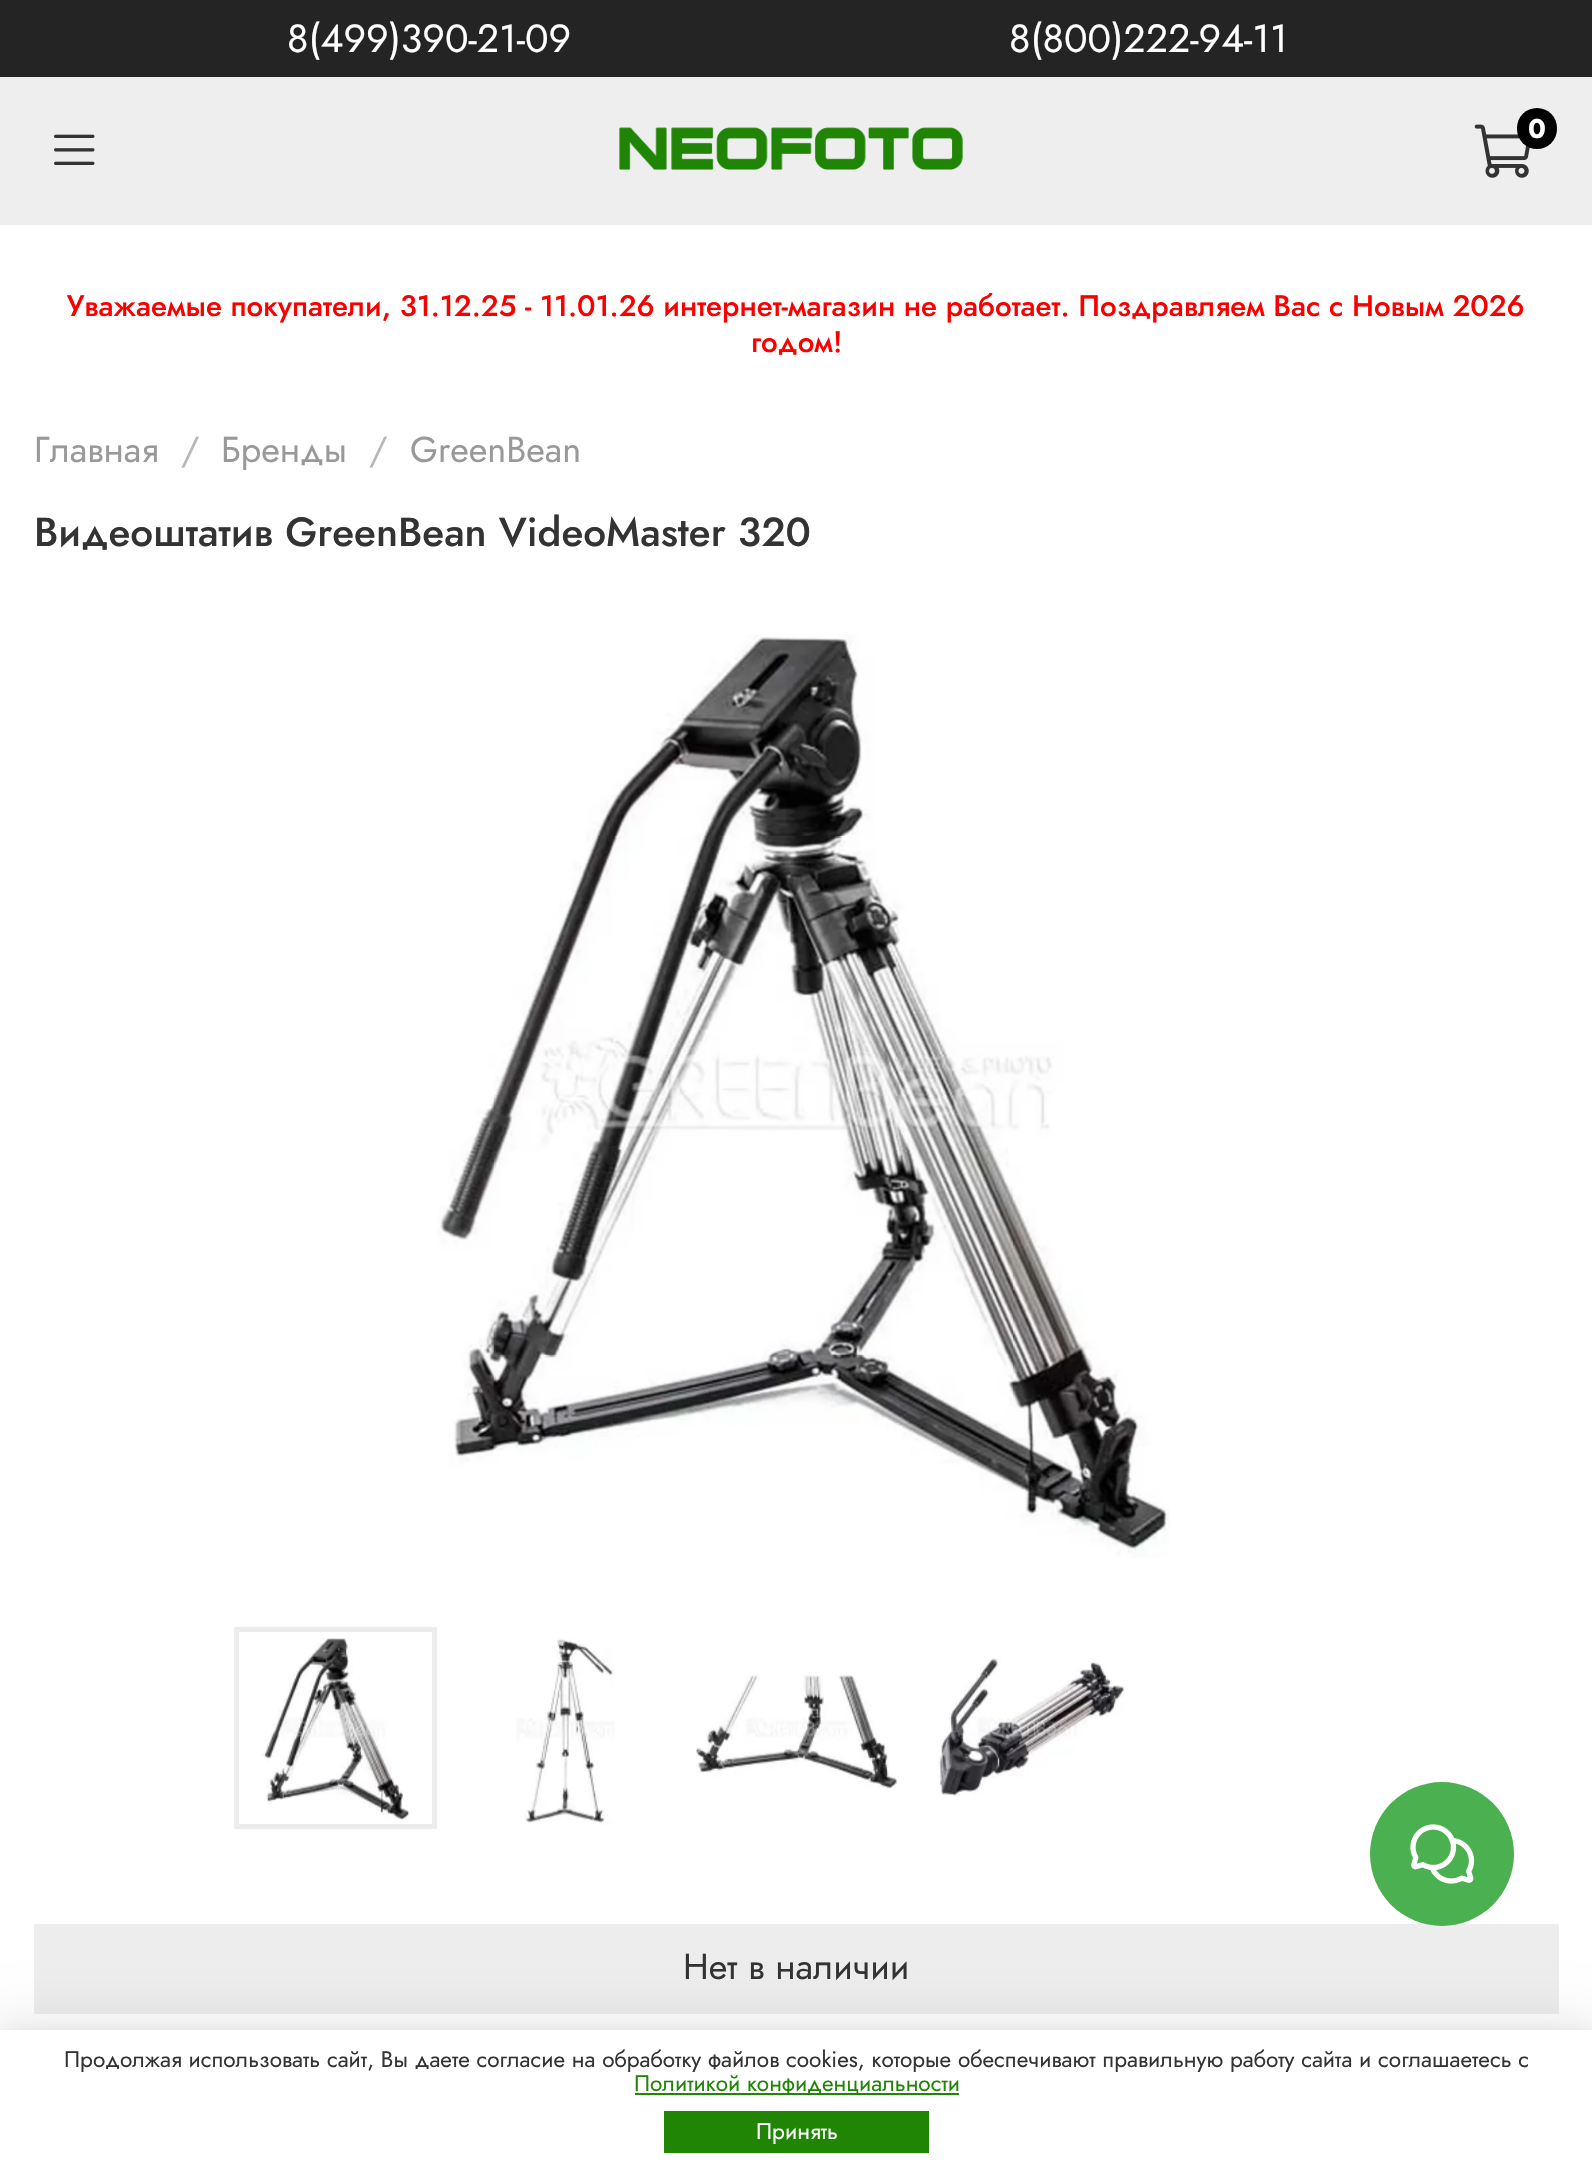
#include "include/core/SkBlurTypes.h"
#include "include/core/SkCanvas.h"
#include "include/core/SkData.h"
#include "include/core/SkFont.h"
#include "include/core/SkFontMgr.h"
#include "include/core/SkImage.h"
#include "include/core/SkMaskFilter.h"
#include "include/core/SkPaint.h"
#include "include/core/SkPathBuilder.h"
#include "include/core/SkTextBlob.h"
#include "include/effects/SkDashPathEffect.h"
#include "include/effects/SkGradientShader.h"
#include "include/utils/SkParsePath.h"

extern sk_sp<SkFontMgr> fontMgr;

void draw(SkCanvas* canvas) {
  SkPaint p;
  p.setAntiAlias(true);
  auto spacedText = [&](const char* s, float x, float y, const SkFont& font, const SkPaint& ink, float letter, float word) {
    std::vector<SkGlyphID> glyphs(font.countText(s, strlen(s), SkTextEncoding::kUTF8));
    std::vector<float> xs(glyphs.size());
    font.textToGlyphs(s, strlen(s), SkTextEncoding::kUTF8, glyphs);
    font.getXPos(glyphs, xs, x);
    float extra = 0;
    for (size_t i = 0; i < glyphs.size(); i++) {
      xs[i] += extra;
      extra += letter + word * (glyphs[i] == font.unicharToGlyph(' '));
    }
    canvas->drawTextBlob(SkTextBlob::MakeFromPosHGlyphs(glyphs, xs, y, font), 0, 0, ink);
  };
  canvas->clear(SK_ColorWHITE);
  p.setColor(SkColorSetRGB(238, 238, 238));
  canvas->drawRect(SkRect::MakeLTRB(0, 77, 1592, 225), p);
  p.setColor(SkColorSetRGB(36, 36, 36));
  canvas->drawRect(SkRect::MakeLTRB(0, 0, 1592, 77), p);
  canvas->drawImageRect(SkImages::DeferredFromEncodedData(SkData::MakeFromFileName("images/1.png")), SkRect::MakeLTRB(54, 134, 95, 165), SkSamplingOptions());
  canvas->drawImageRect(SkImages::DeferredFromEncodedData(SkData::MakeFromFileName("images/2.png")), SkRect::MakeLTRB(619, 127, 963, 170), SkSamplingOptions());
  canvas->drawImageRect(SkImages::DeferredFromEncodedData(SkData::MakeFromFileName("images/3.png")), SkRect::MakeLTRB(1474, 124, 1530, 178), SkSamplingOptions());
  p.setColor(SK_ColorBLACK);
  canvas->drawRoundRect(SkRect::MakeLTRB(1517, 108, 1557, 149), 20, 20, p);
  canvas->drawImageRect(SkImages::DeferredFromEncodedData(SkData::MakeFromFileName("images/4.png")), SkRect::MakeLTRB(437, 634, 1170, 1558), SkSamplingOptions());
  canvas->drawImageRect(SkImages::DeferredFromEncodedData(SkData::MakeFromFileName("images/5.png")), SkRect::MakeLTRB(261, 1638, 410, 1821), SkSamplingOptions());
  p.setStyle(SkPaint::kStroke_Style);
  p.setStrokeWidth(5);
  p.setColor(SkColorSetRGB(237, 237, 237));
  canvas->drawRect(SkRect::MakeLTRB(236.5f, 1629.5f, 434.5f, 1826.5f), p);
  canvas->drawImageRect(SkImages::DeferredFromEncodedData(SkData::MakeFromFileName("images/6.png")), SkRect::MakeLTRB(516, 1638, 615, 1825), SkSamplingOptions());
  canvas->drawImageRect(SkImages::DeferredFromEncodedData(SkData::MakeFromFileName("images/7.png")), SkRect::MakeLTRB(696, 1675, 897, 1789), SkSamplingOptions());
  canvas->drawImageRect(SkImages::DeferredFromEncodedData(SkData::MakeFromFileName("images/8.png")), SkRect::MakeLTRB(938, 1658, 1125, 1797), SkSamplingOptions());
  p.setStyle(SkPaint::kFill_Style);
  canvas->drawRect(SkRect::MakeLTRB(34, 1924, 1559, 2014), p);
  p.setColor(SkColorSetRGB(75, 176, 79));
  canvas->drawCircle(1442, 1854, 72, p);
  canvas->drawImageRect(SkImages::DeferredFromEncodedData(SkData::MakeFromFileName("images/9.png")), SkRect::MakeLTRB(1410, 1824, 1475, 1884), SkSamplingOptions());
  p.setColor(SkColorSetARGB(31, 0, 0, 0));
  p.setMaskFilter(SkMaskFilter::MakeBlur(kNormal_SkBlurStyle, 11));
  canvas->drawRect(SkRect::MakeLTRB(0, 2039, 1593, 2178), p);
  p.setMaskFilter(nullptr);
  p.setColor(SkColorSetARGB(23, 0, 0, 0));
  p.setMaskFilter(SkMaskFilter::MakeBlur(kNormal_SkBlurStyle, 26));
  canvas->drawRect(SkRect::MakeLTRB(-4, 2023, 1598, 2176), p);
  p.setMaskFilter(nullptr);
  p.setColor(SK_ColorWHITE);
  canvas->drawRect(SkRect::MakeLTRB(0, 2030, 1592, 2172), p);
  p.setColor(SkColorSetRGB(32, 133, 5));
  canvas->drawRect(SkRect::MakeLTRB(635, 2093, 959, 2095), p);
  canvas->drawRect(SkRect::MakeLTRB(664, 2111, 929, 2153), p);
  SkFont font1(fontMgr->matchFamilyStyle("Jost", SkFontStyle::Normal()), 39.25f);
  font1.setSubpixel(true);
  p.setColor(SK_ColorWHITE);
  canvas->drawString("8(499)390-21-09", 287, 52, font1, p);
  canvas->drawString("8(800)222-94-11", 1009, 52, font1, p);
  SkFont font2(fontMgr->matchFamilyStyle("Jost", SkFontStyle::Bold()), 27);
  font2.setSubpixel(true);
  canvas->drawString("0", 1528, 138, font2, p);
  SkFont font3(fontMgr->matchFamilyStyle("Jost", SkFontStyle(500, SkFontStyle::kNormal_Width, SkFontStyle::kUpright_Slant)), 29.55f);
  font3.setSubpixel(true);
  p.setColor(SkColorSetRGB(252, 0, 0));
  spacedText("Уважаемые покупатели, 31.12.25 - 11.01.26 интернет-магазин не работает. Поздравляем Вас с Новым 2026", 67, 316, font3, p, 0, -0.25f);
  canvas->drawString("годом!", 751, 352, font3, p);
  SkFont font4(fontMgr->matchFamilyStyle("Jost", SkFontStyle::Normal()), 36);
  font4.setSubpixel(true);
  p.setColor(SkColorSetRGB(153, 153, 153));
  canvas->drawString("Главная", 34, 462, font4, p);
  p.setColor(SkColorSetRGB(184, 184, 184));
  canvas->drawString("/", 181, 462, font4, p);
  p.setColor(SkColorSetRGB(153, 153, 153));
  canvas->drawString("Бренды", 221, 462, font4, p);
  p.setColor(SkColorSetRGB(184, 184, 184));
  canvas->drawString("/", 369, 462, font4, p);
  p.setColor(SkColorSetRGB(153, 153, 153));
  canvas->drawString("GreenBean", 410, 462, font4, p);
  SkFont font5(fontMgr->matchFamilyStyle("Jost", SkFontStyle(500, SkFontStyle::kNormal_Width, SkFontStyle::kUpright_Slant)), 40.5f);
  font5.setSubpixel(true);
  p.setColor(SkColorSetRGB(51, 51, 51));
  canvas->drawString("Видеоштатив GreenBean VideoMaster 320", 34, 546, font5, p);
  canvas->drawString("Нет в наличии", 683, 1979, font4, p);
  SkFont font6(fontMgr->matchFamilyStyle("Jost", SkFontStyle::Normal()), 22.5f);
  font6.setSubpixel(true);
  canvas->drawString("Продолжая использовать сайт, Вы даете согласие на обработку файлов cookies, которые обеспечивают правильную работу сайта и соглашаетесь с", 64, 2067, font6, p);
  p.setColor(SkColorSetRGB(32, 133, 5));
  canvas->drawString("Политикой конфиденциальности", 634, 2091, font6, p);
  p.setColor(SK_ColorWHITE);
  canvas->drawString("Принять", 756, 2139, font6, p);
}
